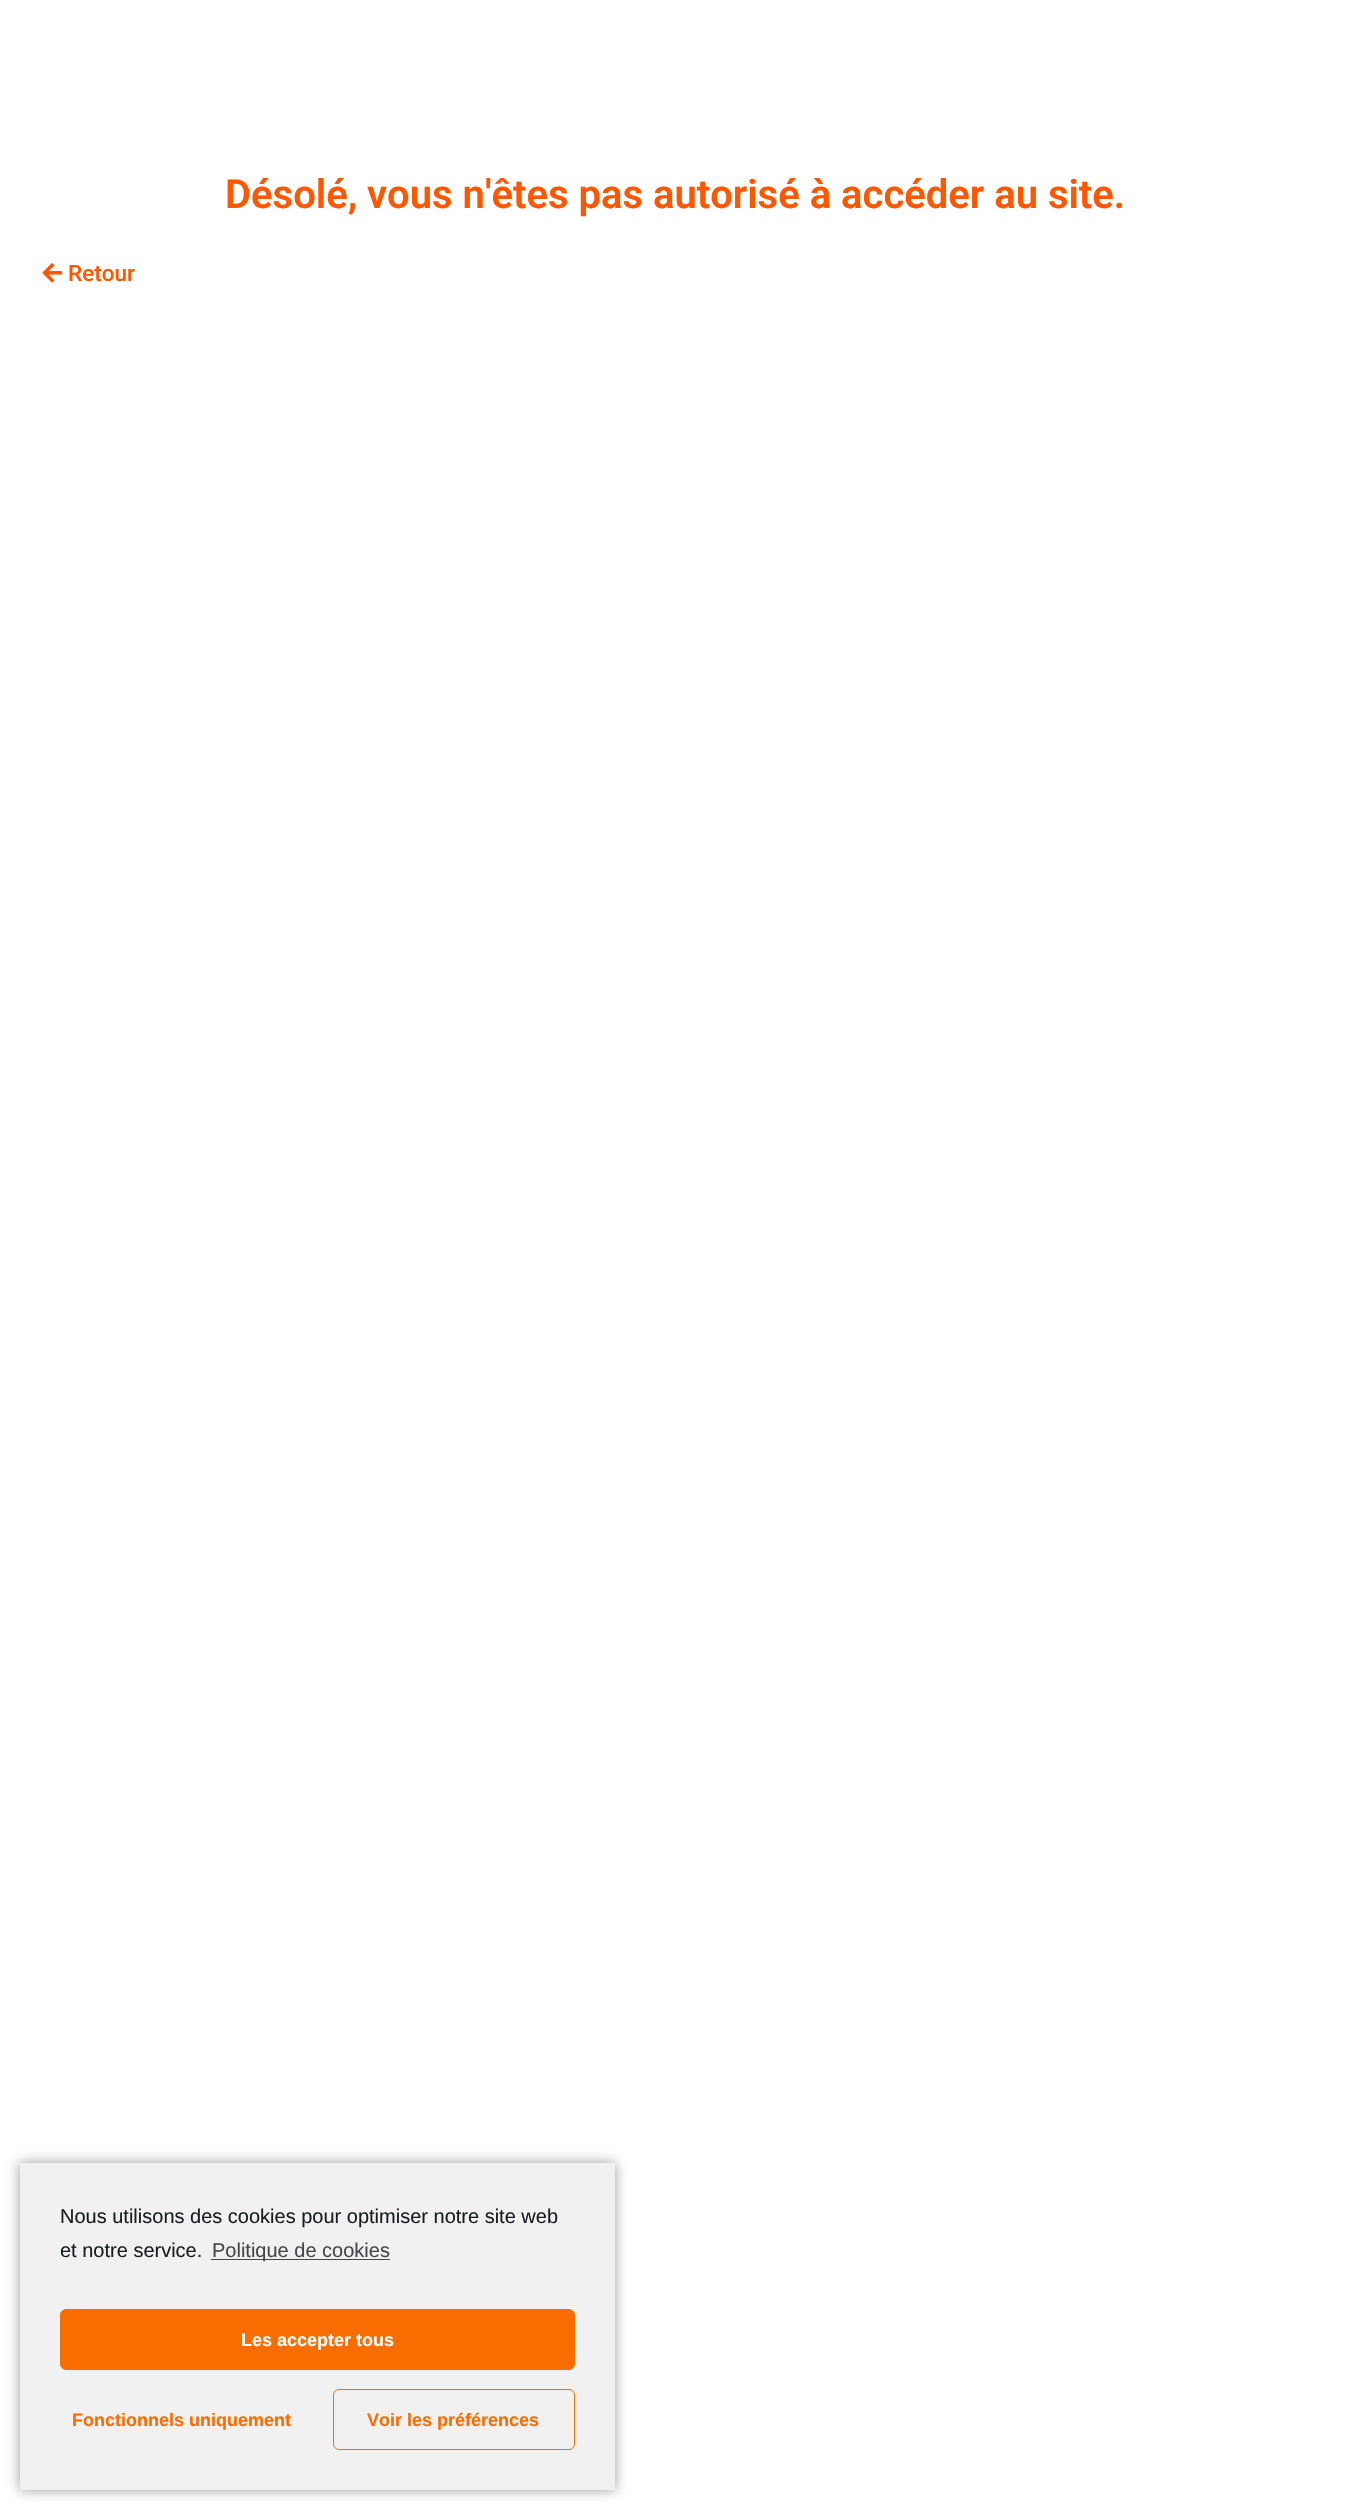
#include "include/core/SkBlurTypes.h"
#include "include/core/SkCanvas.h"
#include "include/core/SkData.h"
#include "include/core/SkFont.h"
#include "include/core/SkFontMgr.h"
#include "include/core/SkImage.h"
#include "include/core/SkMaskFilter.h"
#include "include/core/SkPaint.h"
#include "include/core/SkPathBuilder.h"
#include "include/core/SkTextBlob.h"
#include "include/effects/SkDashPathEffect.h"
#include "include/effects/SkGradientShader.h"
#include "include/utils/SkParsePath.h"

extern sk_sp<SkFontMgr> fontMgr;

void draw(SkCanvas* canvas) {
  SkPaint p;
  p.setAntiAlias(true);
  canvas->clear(SK_ColorWHITE);
  canvas->drawImageRect(SkImages::DeferredFromEncodedData(SkData::MakeFromFileName("images/1.png")), SkRect::MakeLTRB(42, 263, 63, 283), SkSamplingOptions());
  p.setColor(SkColorSetARGB(102, 0, 0, 0));
  p.setMaskFilter(SkMaskFilter::MakeBlur(kNormal_SkBlurStyle, 6));
  canvas->drawRect(SkRect::MakeLTRB(20, 2163, 615, 2490), p);
  p.setMaskFilter(nullptr);
  p.setColor(SkColorSetRGB(241, 241, 241));
  canvas->drawRect(SkRect::MakeLTRB(20, 2163, 615, 2490), p);
  p.setColor(SkColorSetRGB(68, 72, 76));
  canvas->drawRect(SkRect::MakeLTRB(211, 2259, 390, 2260), p);
  p.setColor(SkColorSetRGB(249, 108, 0));
  canvas->drawRoundRect(SkRect::MakeLTRB(60.5f, 2309.5f, 574.5f, 2369.5f), 5.5f, 5.5f, p);
  p.setStyle(SkPaint::kStroke_Style);
  p.setStrokeWidth(1);
  canvas->drawRoundRect(SkRect::MakeLTRB(60.5f, 2309.5f, 574.5f, 2369.5f), 5.5f, 5.5f, p);
  canvas->drawRoundRect(SkRect::MakeLTRB(333.5f, 2389.5f, 574.5f, 2449.5f), 5.5f, 5.5f, p);
  SkFont font1(fontMgr->matchFamilyStyle("Roboto", SkFontStyle(600, SkFontStyle::kNormal_Width, SkFontStyle::kUpright_Slant)), 40);
  font1.setSubpixel(true);
  p.setStyle(SkPaint::kFill_Style);
  p.setColor(SkColorSetRGB(255, 86, 0));
  canvas->drawString("Désolé, vous n'êtes pas autorisé à accéder au site.", 225, 208, font1, p);
  SkFont font2(fontMgr->matchFamilyStyle("Roboto", SkFontStyle(500, SkFontStyle::kNormal_Width, SkFontStyle::kUpright_Slant)), 22.5f);
  font2.setSubpixel(true);
  canvas->drawString("Retour", 68, 281, font2, p);
  SkFont font3(fontMgr->matchFamilyStyle("Liberation Sans", SkFontStyle::Normal()), 20);
  font3.setSubpixel(true);
  p.setColor(SkColorSetRGB(25, 30, 35));
  canvas->drawString("Nous utilisons des cookies pour optimiser notre site web", 60, 2223, font3, p);
  canvas->drawString("et notre service.", 60, 2257, font3, p);
  p.setColor(SkColorSetRGB(68, 72, 76));
  canvas->drawString("Politique de cookies", 212, 2257, font3, p);
  SkFont font4(fontMgr->matchFamilyStyle("Liberation Sans", SkFontStyle::Bold()), 18);
  font4.setSubpixel(true);
  p.setColor(SK_ColorWHITE);
  canvas->drawString("Les accepter tous", 241, 2346, font4, p);
  p.setColor(SkColorSetRGB(249, 108, 0));
  canvas->drawString("Fonctionnels uniquement", 72, 2426, font4, p);
  canvas->drawString("Voir les préférences", 367, 2426, font4, p);
}
